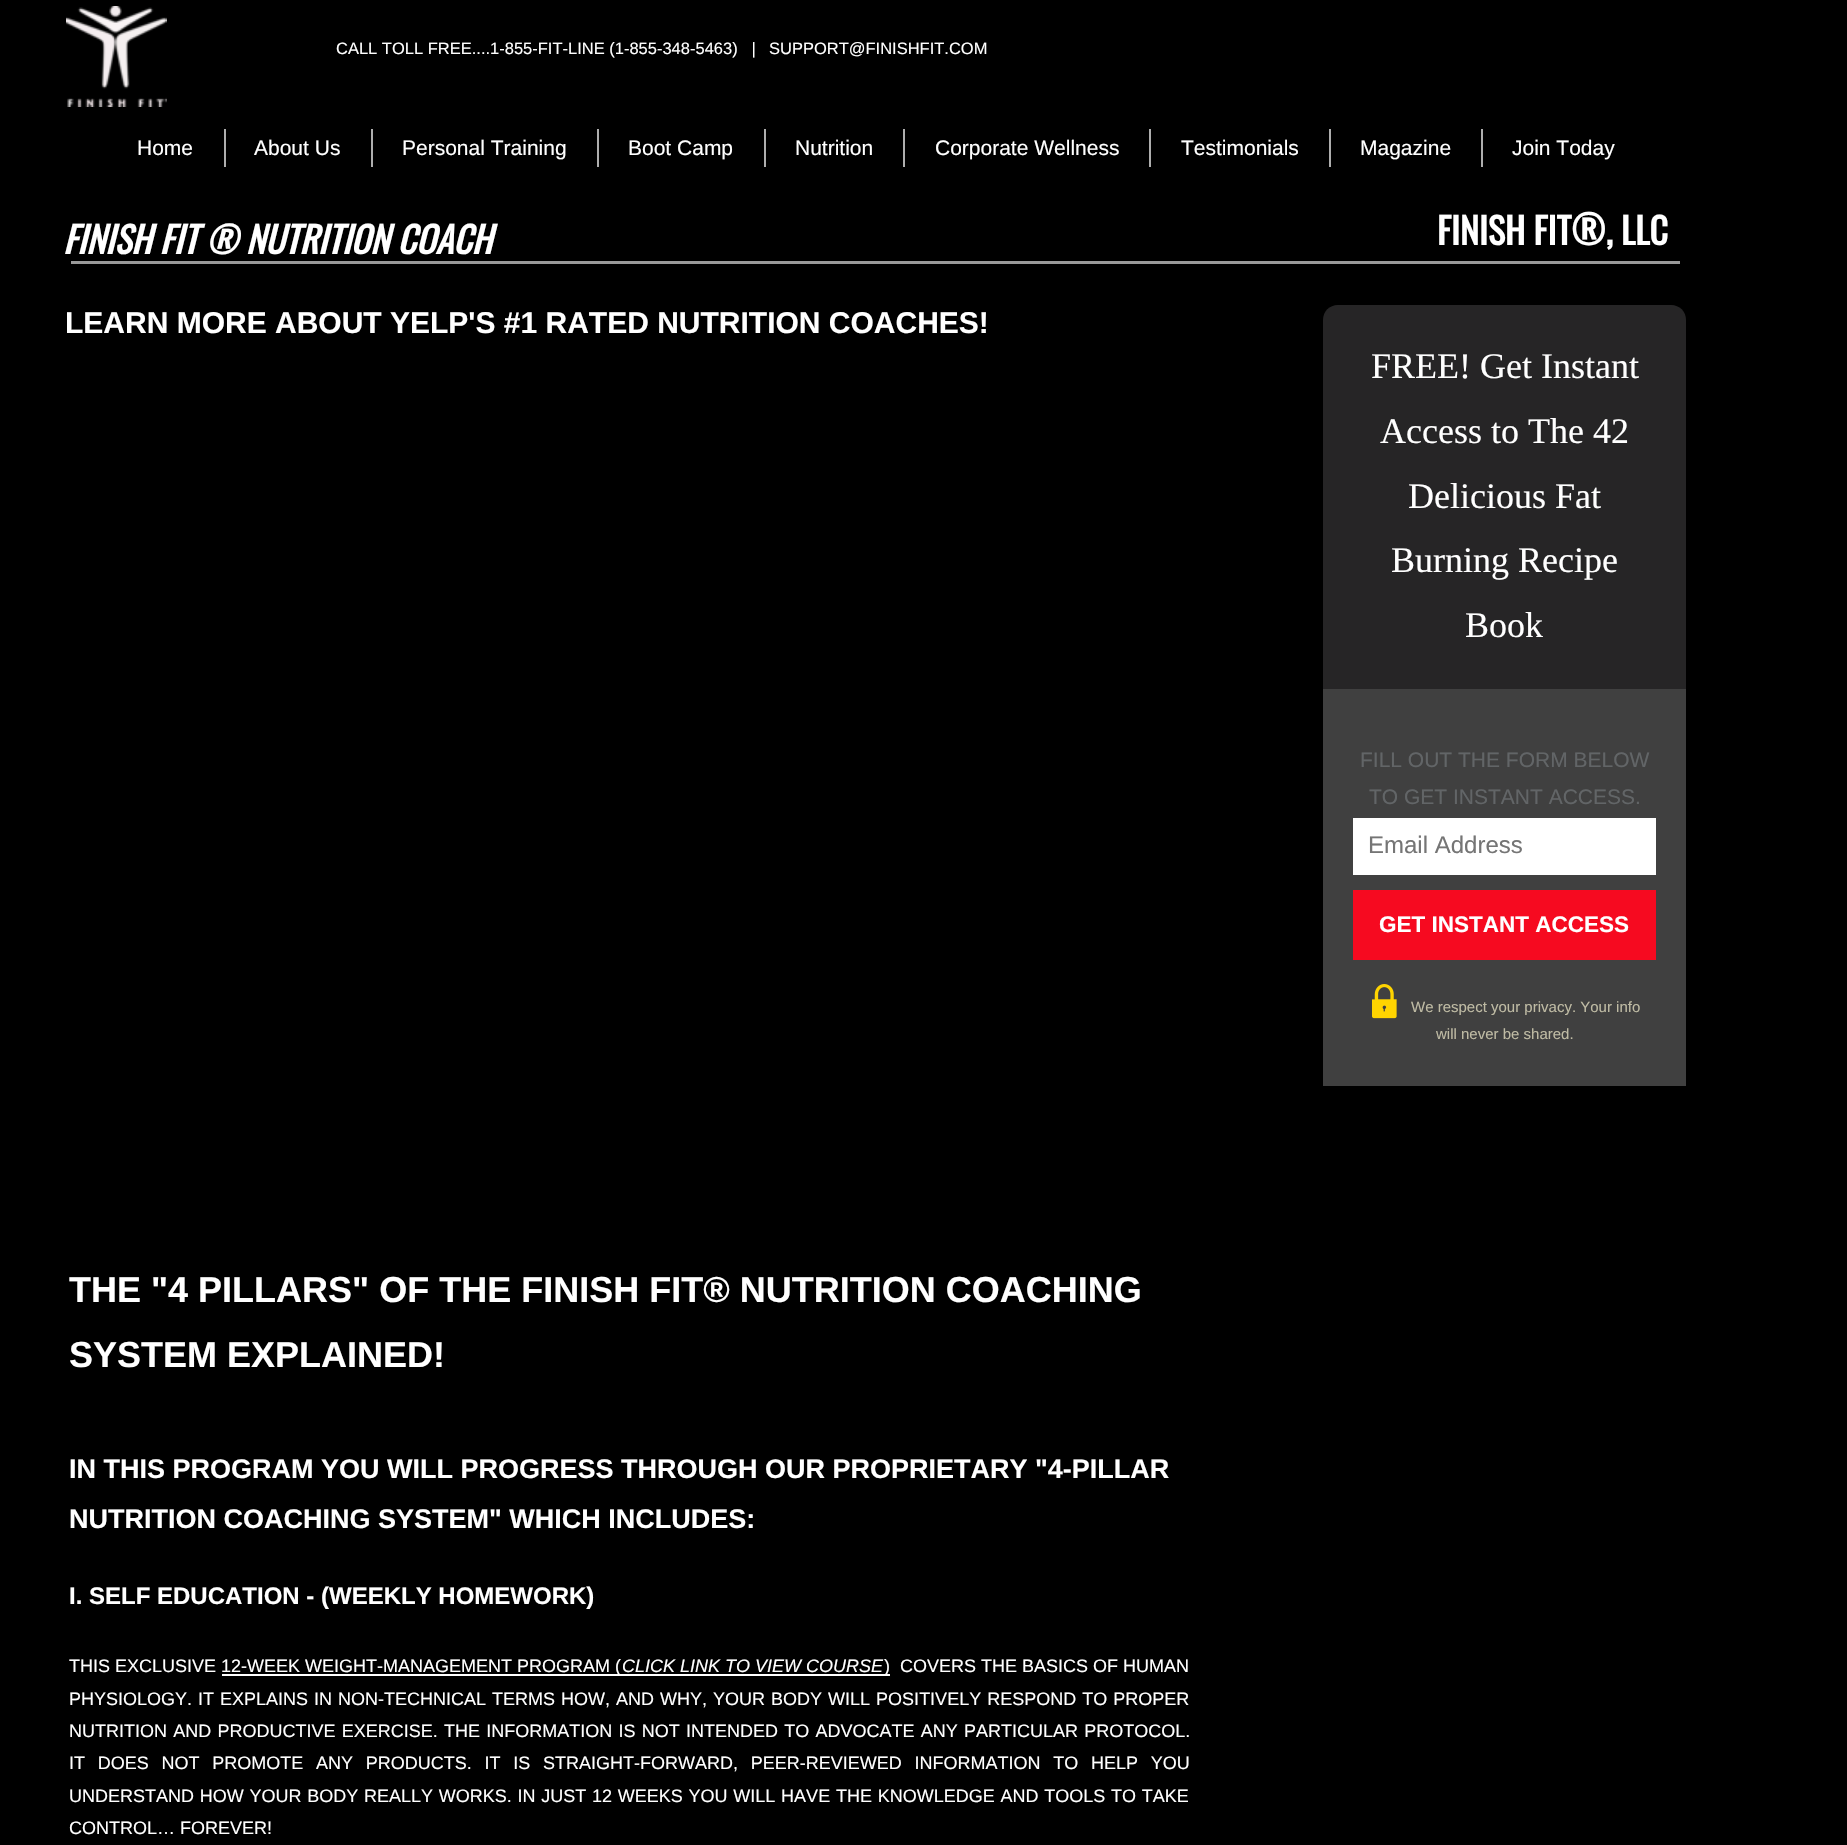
#include "include/core/SkBlurTypes.h"
#include "include/core/SkCanvas.h"
#include "include/core/SkData.h"
#include "include/core/SkFont.h"
#include "include/core/SkFontMgr.h"
#include "include/core/SkImage.h"
#include "include/core/SkMaskFilter.h"
#include "include/core/SkPaint.h"
#include "include/core/SkPathBuilder.h"
#include "include/core/SkTextBlob.h"
#include "include/effects/SkDashPathEffect.h"
#include "include/effects/SkGradientShader.h"
#include "include/utils/SkParsePath.h"

extern sk_sp<SkFontMgr> fontMgr;

void draw(SkCanvas* canvas) {
  SkPaint p;
  p.setAntiAlias(true);
  auto spacedText = [&](const char* s, float x, float y, const SkFont& font, const SkPaint& ink, float letter, float word) {
    std::vector<SkGlyphID> glyphs(font.countText(s, strlen(s), SkTextEncoding::kUTF8));
    std::vector<float> xs(glyphs.size());
    font.textToGlyphs(s, strlen(s), SkTextEncoding::kUTF8, glyphs);
    font.getXPos(glyphs, xs, x);
    float extra = 0;
    for (size_t i = 0; i < glyphs.size(); i++) {
      xs[i] += extra;
      extra += letter + word * (glyphs[i] == font.unicharToGlyph(' '));
    }
    canvas->drawTextBlob(SkTextBlob::MakeFromPosHGlyphs(glyphs, xs, y, font), 0, 0, ink);
  };
  canvas->clear(SK_ColorBLACK);
  canvas->drawImageRect(SkImages::DeferredFromEncodedData(SkData::MakeFromFileName("images/1.png")), SkRect::MakeLTRB(66, 6, 167, 107), SkSamplingOptions());
  p.setColor(SkColorSetRGB(174, 174, 174));
  canvas->drawRect(SkRect::MakeLTRB(224, 129, 226, 167), p);
  canvas->drawRect(SkRect::MakeLTRB(371, 129, 373, 167), p);
  canvas->drawRect(SkRect::MakeLTRB(597, 129, 599, 167), p);
  canvas->drawRect(SkRect::MakeLTRB(764, 129, 766, 167), p);
  canvas->drawRect(SkRect::MakeLTRB(903, 129, 905, 167), p);
  canvas->drawRect(SkRect::MakeLTRB(1149, 129, 1151, 167), p);
  canvas->drawRect(SkRect::MakeLTRB(1329, 129, 1331, 167), p);
  canvas->drawRect(SkRect::MakeLTRB(1481, 129, 1483, 167), p);
  p.setColor(SkColorSetRGB(153, 153, 153));
  canvas->drawRect(SkRect::MakeLTRB(71, 261, 1680, 264), p);
  p.setColor(SkColorSetRGB(38, 37, 38));
  canvas->drawPath(SkPathBuilder().moveTo(1338, 305).lineTo(1671, 305).cubicTo(1679.5f, 305, 1686, 311.5f, 1686, 320).lineTo(1686, 689).lineTo(1323, 689).lineTo(1323, 320).cubicTo(1323, 311.5f, 1329.5f, 305, 1338, 305).close().detach(), p);
  p.setColor(SkColorSetRGB(64, 64, 64));
  canvas->drawRect(SkRect::MakeLTRB(1323, 689, 1686, 1086), p);
  p.setColor(SK_ColorWHITE);
  canvas->drawRect(SkRect::MakeLTRB(1353, 818, 1656, 875), p);
  p.setColor(SkColorSetRGB(246, 10, 32));
  canvas->drawRect(SkRect::MakeLTRB(1353, 890, 1656, 960), p);
  canvas->drawImageRect(SkImages::DeferredFromEncodedData(SkData::MakeFromFileName("images/2.png")), SkRect::MakeLTRB(1372, 984, 1397, 1019), SkSamplingOptions());
  p.setColor(SK_ColorWHITE);
  canvas->drawRect(SkRect::MakeLTRB(222, 1674, 890, 1676), p);
  SkFont font1(fontMgr->matchFamilyStyle("Liberation Sans", SkFontStyle::Normal()), 16.5f);
  font1.setSubpixel(true);
  canvas->drawString("CALL TOLL FREE....1-855-FIT-LINE (1-855-348-5463)   |", 336, 54, font1, p);
  canvas->drawString("SUPPORT@FINISHFIT.COM", 769, 54, font1, p);
  SkFont font2(fontMgr->matchFamilyStyle("Liberation Sans", SkFontStyle::Normal()), 21);
  font2.setSubpixel(true);
  canvas->drawString("Home", 137, 155, font2, p);
  canvas->drawString("About Us", 254, 155, font2, p);
  canvas->drawString("Personal Training", 402, 155, font2, p);
  canvas->drawString("Boot Camp", 628, 155, font2, p);
  canvas->drawString("Nutrition", 795, 155, font2, p);
  canvas->drawString("Corporate Wellness", 935, 155, font2, p);
  canvas->drawString("Testimonials", 1181, 155, font2, p);
  canvas->drawString("Magazine", 1360, 155, font2, p);
  canvas->drawString("Join Today", 1512, 155, font2, p);
  SkFont font3(fontMgr->matchFamilyStyle("Oswald", SkFontStyle::BoldItalic()), 36);
  font3.setSubpixel(true);
  canvas->drawString("FINISH FIT ® NUTRITION COACH", 63, 254, font3, p);
  SkFont font4(fontMgr->matchFamilyStyle("Oswald", SkFontStyle::Bold()), 36);
  font4.setSubpixel(true);
  canvas->drawString("FINISH FIT", 1437, 245, font4, p);
  SkFont font5(fontMgr->matchFamilyStyle("Oswald", SkFontStyle::Bold()), 39);
  font5.setSubpixel(true);
  canvas->drawString("®", 1571, 245, font5, p);
  canvas->drawString(", LLC", 1606, 245, font4, p);
  SkFont font6(fontMgr->matchFamilyStyle("Liberation Sans", SkFontStyle::Bold()), 30);
  font6.setSubpixel(true);
  canvas->drawString("LEARN MORE ABOUT YELP'S #1 RATED NUTRITION COACHES!", 65, 333, font6, p);
  SkFont font7(fontMgr->matchFamilyStyle("Liberation Serif", SkFontStyle::Normal()), 36);
  font7.setSubpixel(true);
  canvas->drawString("FREE! Get Instant", 1371, 378, font7, p);
  canvas->drawString("Access to The 42", 1380, 443, font7, p);
  canvas->drawString("Delicious Fat", 1408, 508, font7, p);
  canvas->drawString("Burning Recipe", 1391, 572, font7, p);
  canvas->drawString("Book", 1465, 637, font7, p);
  p.setColor(SkColorSetRGB(98, 101, 103));
  canvas->drawString("FILL OUT THE FORM BELOW", 1360, 767, font2, p);
  canvas->drawString("TO GET INSTANT ACCESS.", 1369, 804, font2, p);
  SkFont font8(fontMgr->matchFamilyStyle("Liberation Sans", SkFontStyle::Normal()), 24);
  font8.setSubpixel(true);
  p.setColor(SkColorSetRGB(117, 117, 117));
  canvas->drawString("Email Address", 1368, 853, font8, p);
  SkFont font9(fontMgr->matchFamilyStyle("Liberation Sans", SkFontStyle::Bold()), 22.5f);
  font9.setSubpixel(true);
  p.setColor(SK_ColorWHITE);
  canvas->drawString("GET INSTANT ACCESS", 1379, 932, font9, p);
  SkFont font10(fontMgr->matchFamilyStyle("Liberation Sans", SkFontStyle::Normal()), 15);
  font10.setSubpixel(true);
  p.setColor(SkColorSetRGB(191, 187, 164));
  canvas->drawString("We respect your privacy. Your info", 1411, 1012, font10, p);
  canvas->drawString("will never be shared.", 1436, 1039, font10, p);
  SkFont font11(fontMgr->matchFamilyStyle("Liberation Sans", SkFontStyle::Bold()), 36);
  font11.setSubpixel(true);
  p.setColor(SK_ColorWHITE);
  canvas->drawString("THE \"4 PILLARS\" OF THE FINISH FIT® NUTRITION COACHING", 69, 1302, font11, p);
  canvas->drawString("SYSTEM EXPLAINED!", 69, 1367, font11, p);
  SkFont font12(fontMgr->matchFamilyStyle("Liberation Sans", SkFontStyle::Bold()), 27);
  font12.setSubpixel(true);
  canvas->drawString("IN THIS PROGRAM YOU WILL PROGRESS THROUGH OUR PROPRIETARY \"4-PILLAR", 69, 1478, font12, p);
  canvas->drawString("NUTRITION COACHING SYSTEM\" WHICH INCLUDES:", 69, 1528, font12, p);
  SkFont font13(fontMgr->matchFamilyStyle("Liberation Sans", SkFontStyle::Bold()), 24);
  font13.setSubpixel(true);
  canvas->drawString("I. SELF EDUCATION - (WEEKLY HOMEWORK)", 69, 1604, font13, p);
  SkFont font14(fontMgr->matchFamilyStyle("Liberation Sans", SkFontStyle::Normal()), 18);
  font14.setSubpixel(true);
  canvas->drawString("THIS EXCLUSIVE", 69, 1672, font14, p);
  canvas->drawString("12-WEEK WEIGHT-MANAGEMENT PROGRAM (", 221, 1672, font14, p);
  SkFont font15(fontMgr->matchFamilyStyle("Liberation Sans", SkFontStyle::Italic()), 18);
  font15.setSubpixel(true);
  canvas->drawString("CLICK LINK TO VIEW COURSE", 622, 1672, font15, p);
  canvas->drawString(")", 884, 1672, font14, p);
  canvas->drawString("COVERS THE BASICS OF HUMAN", 900, 1672, font14, p);
  spacedText("PHYSIOLOGY. IT EXPLAINS IN NON-TECHNICAL TERMS HOW, AND WHY, YOUR BODY WILL POSITIVELY RESPOND TO PROPER", 69, 1705, font14, p, 0, 1);
  spacedText("NUTRITION AND PRODUCTIVE EXERCISE. THE INFORMATION IS NOT INTENDED TO ADVOCATE ANY PARTICULAR PROTOCOL.", 69, 1737, font14, p, 0, 1.25f);
  spacedText("IT DOES NOT PROMOTE ANY PRODUCTS. IT IS STRAIGHT-FORWARD, PEER-REVIEWED INFORMATION TO HELP YOU", 69, 1769, font14, p, 0, 7.75f);
  spacedText("UNDERSTAND HOW YOUR BODY REALLY WORKS. IN JUST 12 WEEKS YOU WILL HAVE THE KNOWLEDGE AND TOOLS TO TAKE", 69, 1802, font14, p, 0, 0.75f);
  canvas->drawString("CONTROL… FOREVER!", 69, 1834, font14, p);
}
